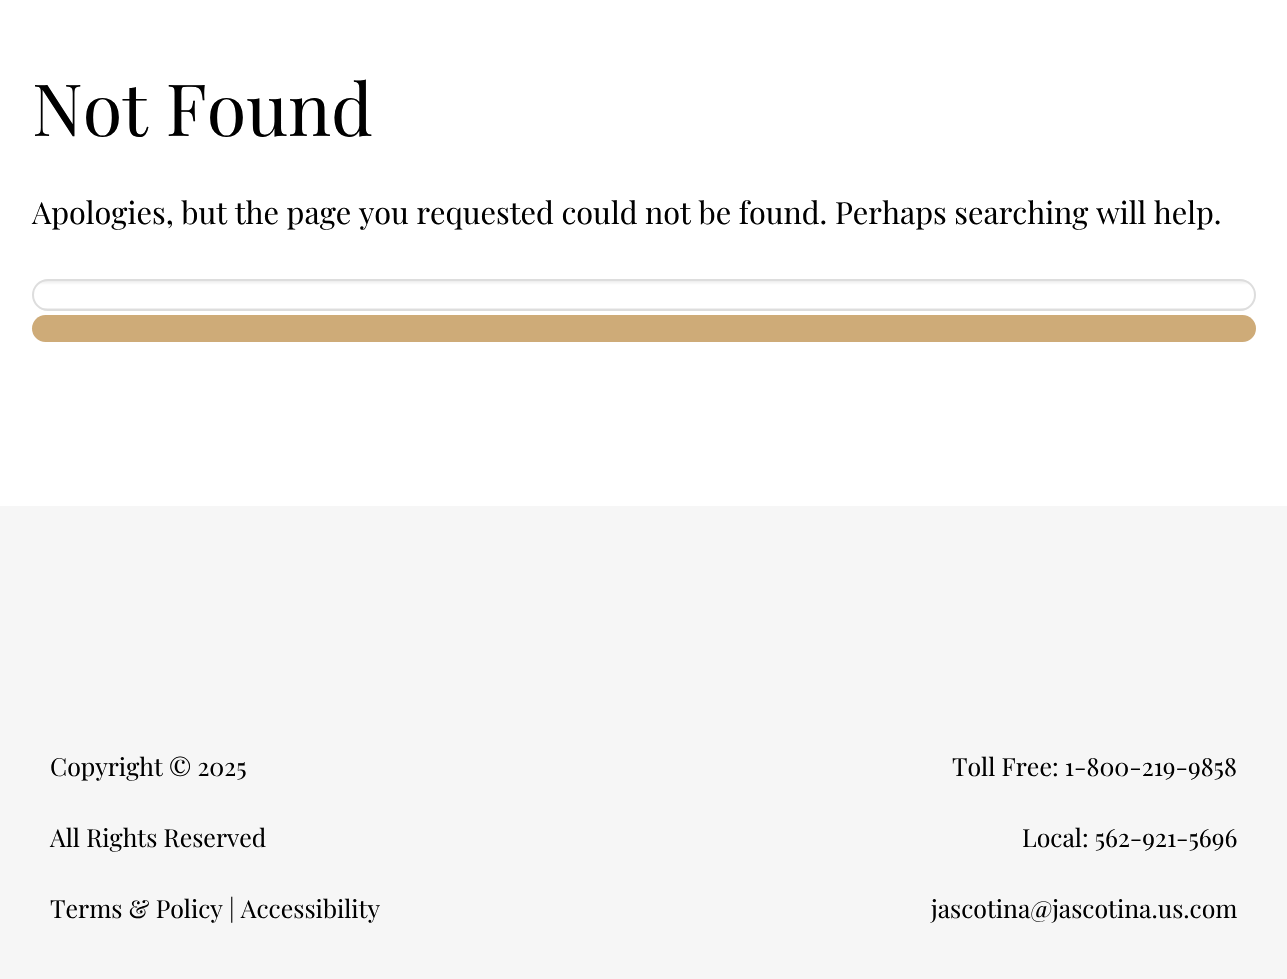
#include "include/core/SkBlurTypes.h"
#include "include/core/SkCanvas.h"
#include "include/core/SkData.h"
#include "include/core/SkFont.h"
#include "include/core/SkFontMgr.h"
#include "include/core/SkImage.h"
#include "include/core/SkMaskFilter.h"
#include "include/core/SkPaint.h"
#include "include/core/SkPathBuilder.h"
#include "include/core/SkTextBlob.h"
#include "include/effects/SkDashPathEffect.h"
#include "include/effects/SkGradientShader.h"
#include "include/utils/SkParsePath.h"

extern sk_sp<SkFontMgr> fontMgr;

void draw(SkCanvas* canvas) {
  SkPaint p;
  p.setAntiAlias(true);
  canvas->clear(SK_ColorWHITE);
  canvas->save();
  canvas->clipPath(SkPathBuilder().moveTo(48, 279).lineTo(1240, 279).cubicTo(1249, 279, 1256, 286, 1256, 295).cubicTo(1256, 304, 1249, 311, 1240, 311).lineTo(48, 311).cubicTo(39, 311, 32, 304, 32, 295).cubicTo(32, 286, 39, 279, 48, 279).close().detach(), true);
  {
    const SkColor colors[] = {SkColorSetRGB(238, 238, 238), SK_ColorWHITE};
    const float stops[] = {0.01f, 0.15f};
    const SkPoint ends[] = {{644, 281}, {644, 308}};
    p.setShader(SkGradientShader::MakeLinear(ends, colors, stops, 2, SkTileMode::kClamp));
    p.setAlpha(255);
  }
  canvas->drawRect(SkRect::MakeLTRB(32, 281, 1256, 308), p);
  {
    const SkColor colors[] = {SkColorSetRGB(238, 238, 238), SK_ColorWHITE};
    const float stops[] = {0.01f, 0.15f};
    const SkPoint ends[] = {{644, 308}, {644, 335}};
    p.setShader(SkGradientShader::MakeLinear(ends, colors, stops, 2, SkTileMode::kClamp));
    p.setAlpha(255);
  }
  canvas->drawRect(SkRect::MakeLTRB(32, 308, 1256, 311), p);
  canvas->restore();
  p.setStyle(SkPaint::kStroke_Style);
  p.setStrokeWidth(2);
  p.setShader(nullptr);
  p.setColor(SkColorSetRGB(221, 221, 221));
  canvas->drawRoundRect(SkRect::MakeLTRB(33, 280, 1255, 310), 15, 15, p);
  p.setStyle(SkPaint::kFill_Style);
  p.setColor(SkColorSetRGB(206, 171, 120));
  canvas->drawRoundRect(SkRect::MakeLTRB(32, 315, 1256, 342), 13.5f, 13.5f, p);
  p.setColor(SkColorSetRGB(246, 246, 246));
  canvas->drawRect(SkRect::MakeLTRB(0, 506, 1287, 979), p);
  SkFont font1(fontMgr->matchFamilyStyle("Playfair Display", SkFontStyle::Normal()), 72);
  font1.setSubpixel(true);
  p.setColor(SK_ColorBLACK);
  canvas->drawString("Not Found", 32, 136, font1, p);
  SkFont font2(fontMgr->matchFamilyStyle("Playfair Display", SkFontStyle::Normal()), 30.6f);
  font2.setSubpixel(true);
  canvas->drawString("Apologies, but the page you requested could not be found. Perhaps searching will help.", 32, 224, font2, p);
  SkFont font3(fontMgr->matchFamilyStyle("Playfair Display", SkFontStyle::Normal()), 24.9f);
  font3.setSubpixel(true);
  canvas->drawString("Copyright © 2025", 50, 776, font3, p);
  canvas->drawString("All Rights Reserved", 50, 847, font3, p);
  canvas->drawString("Terms & Policy | Accessibility", 50, 918, font3, p);
  canvas->drawString("Toll Free: 1-800-219-9858", 952, 776, font3, p);
  canvas->drawString("Local: 562-921-5696", 1022, 847, font3, p);
  canvas->drawString("jascotina@jascotina.us.com", 931, 918, font3, p);
}
